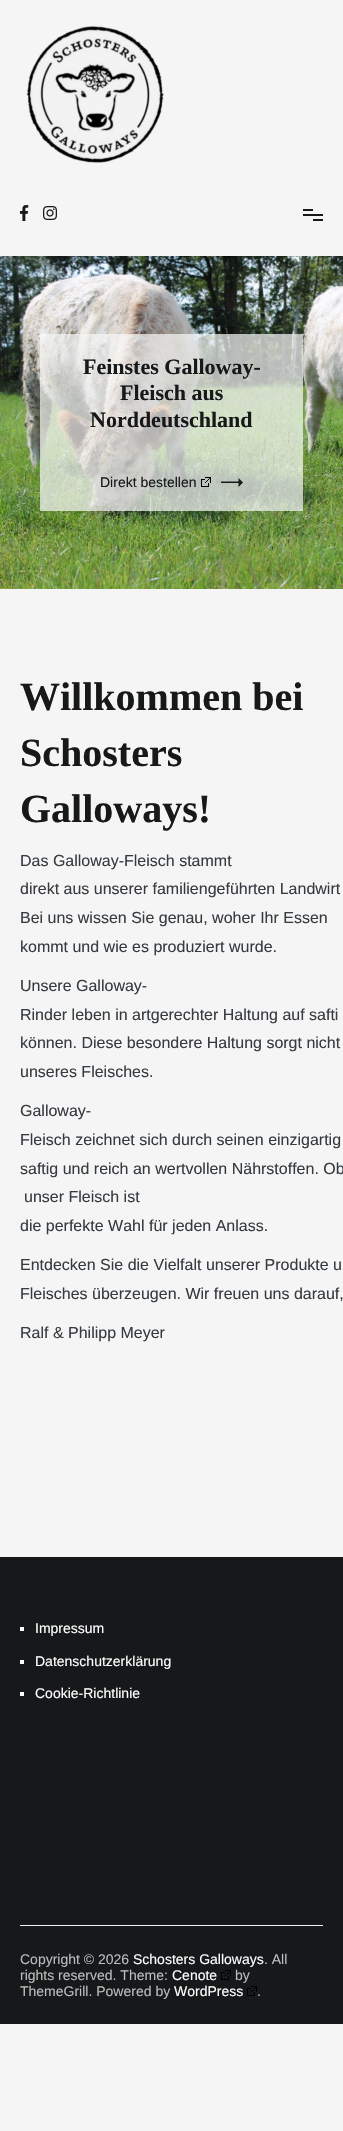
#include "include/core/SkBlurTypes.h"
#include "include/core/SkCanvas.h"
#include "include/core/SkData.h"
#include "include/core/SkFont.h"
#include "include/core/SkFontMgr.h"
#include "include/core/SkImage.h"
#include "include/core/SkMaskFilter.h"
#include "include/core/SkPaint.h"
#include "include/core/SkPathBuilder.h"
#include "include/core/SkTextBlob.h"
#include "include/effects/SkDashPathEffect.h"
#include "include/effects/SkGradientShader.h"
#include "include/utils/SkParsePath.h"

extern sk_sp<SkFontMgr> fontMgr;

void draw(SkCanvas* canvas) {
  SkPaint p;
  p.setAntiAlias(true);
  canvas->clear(SkColorSetRGB(245, 245, 245));
  canvas->drawImageRect(SkImages::DeferredFromEncodedData(SkData::MakeFromFileName("images/1.png")), SkRect::MakeLTRB(26, 26, 164, 163), SkSamplingOptions());
  canvas->drawImageRect(SkImages::DeferredFromEncodedData(SkData::MakeFromFileName("images/2.png")), SkRect::MakeLTRB(20, 205, 29, 221), SkSamplingOptions());
  canvas->drawImageRect(SkImages::DeferredFromEncodedData(SkData::MakeFromFileName("images/3.png")), SkRect::MakeLTRB(43, 206, 57, 220), SkSamplingOptions());
  p.setColor(SkColorSetRGB(22, 24, 26));
  canvas->drawRect(SkRect::MakeLTRB(303, 209, 313, 211), p);
  canvas->drawRect(SkRect::MakeLTRB(303, 214, 323, 216), p);
  canvas->drawRect(SkRect::MakeLTRB(313, 219, 323, 221), p);
  canvas->drawImageRect(SkImages::DeferredFromEncodedData(SkData::MakeFromFileName("images/4.png")), SkRect::MakeLTRB(0, 256, 343, 589), SkSamplingOptions());
  p.setColor(SkColorSetARGB(179, 248, 249, 250));
  canvas->drawRect(SkRect::MakeLTRB(40, 334, 303, 511), p);
  canvas->drawImageRect(SkImages::DeferredFromEncodedData(SkData::MakeFromFileName("images/5.png")), SkRect::MakeLTRB(201, 477, 211, 487), SkSamplingOptions());
  p.setColor(SkColorSetRGB(22, 24, 26));
  canvas->drawPath(SkPathBuilder().moveTo(243, 482.5f).lineTo(238.5f, 487).lineTo(238.5f, 478).close().moveTo(221, 481.5f).lineTo(238.5f, 481.5f).lineTo(238.5f, 483).lineTo(221, 483).close().detach(), p);
  canvas->drawRect(SkRect::MakeLTRB(0, 1557, 343, 2024), p);
  p.setColor(SK_ColorWHITE);
  canvas->drawRect(SkRect::MakeLTRB(20, 1627, 24, 1631), p);
  canvas->drawRect(SkRect::MakeLTRB(20, 1660, 24, 1664), p);
  canvas->drawRect(SkRect::MakeLTRB(20, 1692, 24, 1696), p);
  p.setColor(SkColorSetRGB(241, 243, 245));
  canvas->drawRect(SkRect::MakeLTRB(20, 1925, 323, 1926), p);
  canvas->drawImageRect(SkImages::DeferredFromEncodedData(SkData::MakeFromFileName("images/6.png")), SkRect::MakeLTRB(221, 1970, 231, 1980), SkSamplingOptions());
  canvas->drawImageRect(SkImages::DeferredFromEncodedData(SkData::MakeFromFileName("images/6.png")), SkRect::MakeLTRB(247, 1986, 257, 1996), SkSamplingOptions());
  SkFont font1(fontMgr->matchFamilyStyle("Liberation Serif", SkFontStyle::Bold()), 22);
  font1.setSubpixel(true);
  p.setColor(SkColorSetRGB(22, 24, 26));
  canvas->drawString("Feinstes Galloway-", 83, 374, font1, p);
  canvas->drawString("Fleisch aus", 120, 400, font1, p);
  canvas->drawString("Norddeutschland", 90, 427, font1, p);
  SkFont font2(fontMgr->matchFamilyStyle("Liberation Sans", SkFontStyle::Normal()), 14);
  font2.setSubpixel(true);
  canvas->drawString("Direkt bestellen", 100, 487, font2, p);
  SkFont font3(fontMgr->matchFamilyStyle("Liberation Serif", SkFontStyle::Bold()), 40);
  font3.setSubpixel(true);
  canvas->drawString("Willkommen bei", 20, 710, font3, p);
  canvas->drawString("Schosters", 20, 766, font3, p);
  canvas->drawString("Galloways!", 20, 822, font3, p);
  SkFont font4(fontMgr->matchFamilyStyle("Liberation Sans", SkFontStyle::Normal()), 16);
  font4.setSubpixel(true);
  p.setColor(SkColorSetRGB(54, 59, 64));
  canvas->drawString("Das Galloway-Fleisch stammt", 20, 866, font4, p);
  canvas->drawString("direkt aus unserer familiengeführten Landwirt", 20, 894, font4, p);
  canvas->drawString("Bei uns wissen Sie genau, woher Ihr Essen", 20, 923, font4, p);
  canvas->drawString("kommt und wie es produziert wurde.", 20, 952, font4, p);
  canvas->drawString("Unsere Galloway-", 20, 991, font4, p);
  canvas->drawString("Rinder leben in artgerechter Haltung auf safti", 20, 1020, font4, p);
  canvas->drawString("können. Diese besondere Haltung sorgt nicht", 20, 1048, font4, p);
  canvas->drawString("unseres Fleisches.", 20, 1077, font4, p);
  canvas->drawString("Galloway-", 20, 1116, font4, p);
  canvas->drawString("Fleisch zeichnet sich durch seinen einzigartig", 20, 1145, font4, p);
  canvas->drawString("saftig und reich an wertvollen Nährstoffen. Ob", 20, 1174, font4, p);
  canvas->drawString("unser Fleisch ist", 24, 1202, font4, p);
  canvas->drawString("die perfekte Wahl für jeden Anlass.", 20, 1231, font4, p);
  canvas->drawString("Entdecken Sie die Vielfalt unserer Produkte u", 20, 1270, font4, p);
  canvas->drawString("Fleisches überzeugen. Wir freuen uns darauf,", 20, 1299, font4, p);
  canvas->drawString("Ralf & Philipp Meyer", 20, 1338, font4, p);
  p.setColor(SK_ColorWHITE);
  canvas->drawString("Impressum", 35, 1633, font2, p);
  canvas->drawString("Datenschutzerklärung", 35, 1666, font2, p);
  canvas->drawString("Cookie-Richtlinie", 35, 1698, font2, p);
  p.setColor(SkColorSetRGB(189, 189, 189));
  canvas->drawString("Copyright © 2026", 20, 1964, font2, p);
  p.setColor(SK_ColorWHITE);
  canvas->drawString("Schosters Galloways", 133, 1964, font2, p);
  p.setColor(SkColorSetRGB(189, 189, 189));
  canvas->drawString(". All", 264, 1964, font2, p);
  canvas->drawString("rights reserved. Theme:", 20, 1980, font2, p);
  p.setColor(SK_ColorWHITE);
  canvas->drawString("Cenote", 172, 1980, font2, p);
  p.setColor(SkColorSetRGB(189, 189, 189));
  canvas->drawString("by", 235, 1980, font2, p);
  canvas->drawString("ThemeGrill. Powered by", 20, 1996, font2, p);
  p.setColor(SK_ColorWHITE);
  canvas->drawString("WordPress", 174, 1996, font2, p);
  p.setColor(SkColorSetRGB(189, 189, 189));
  canvas->drawString(".", 257, 1996, font2, p);
}
